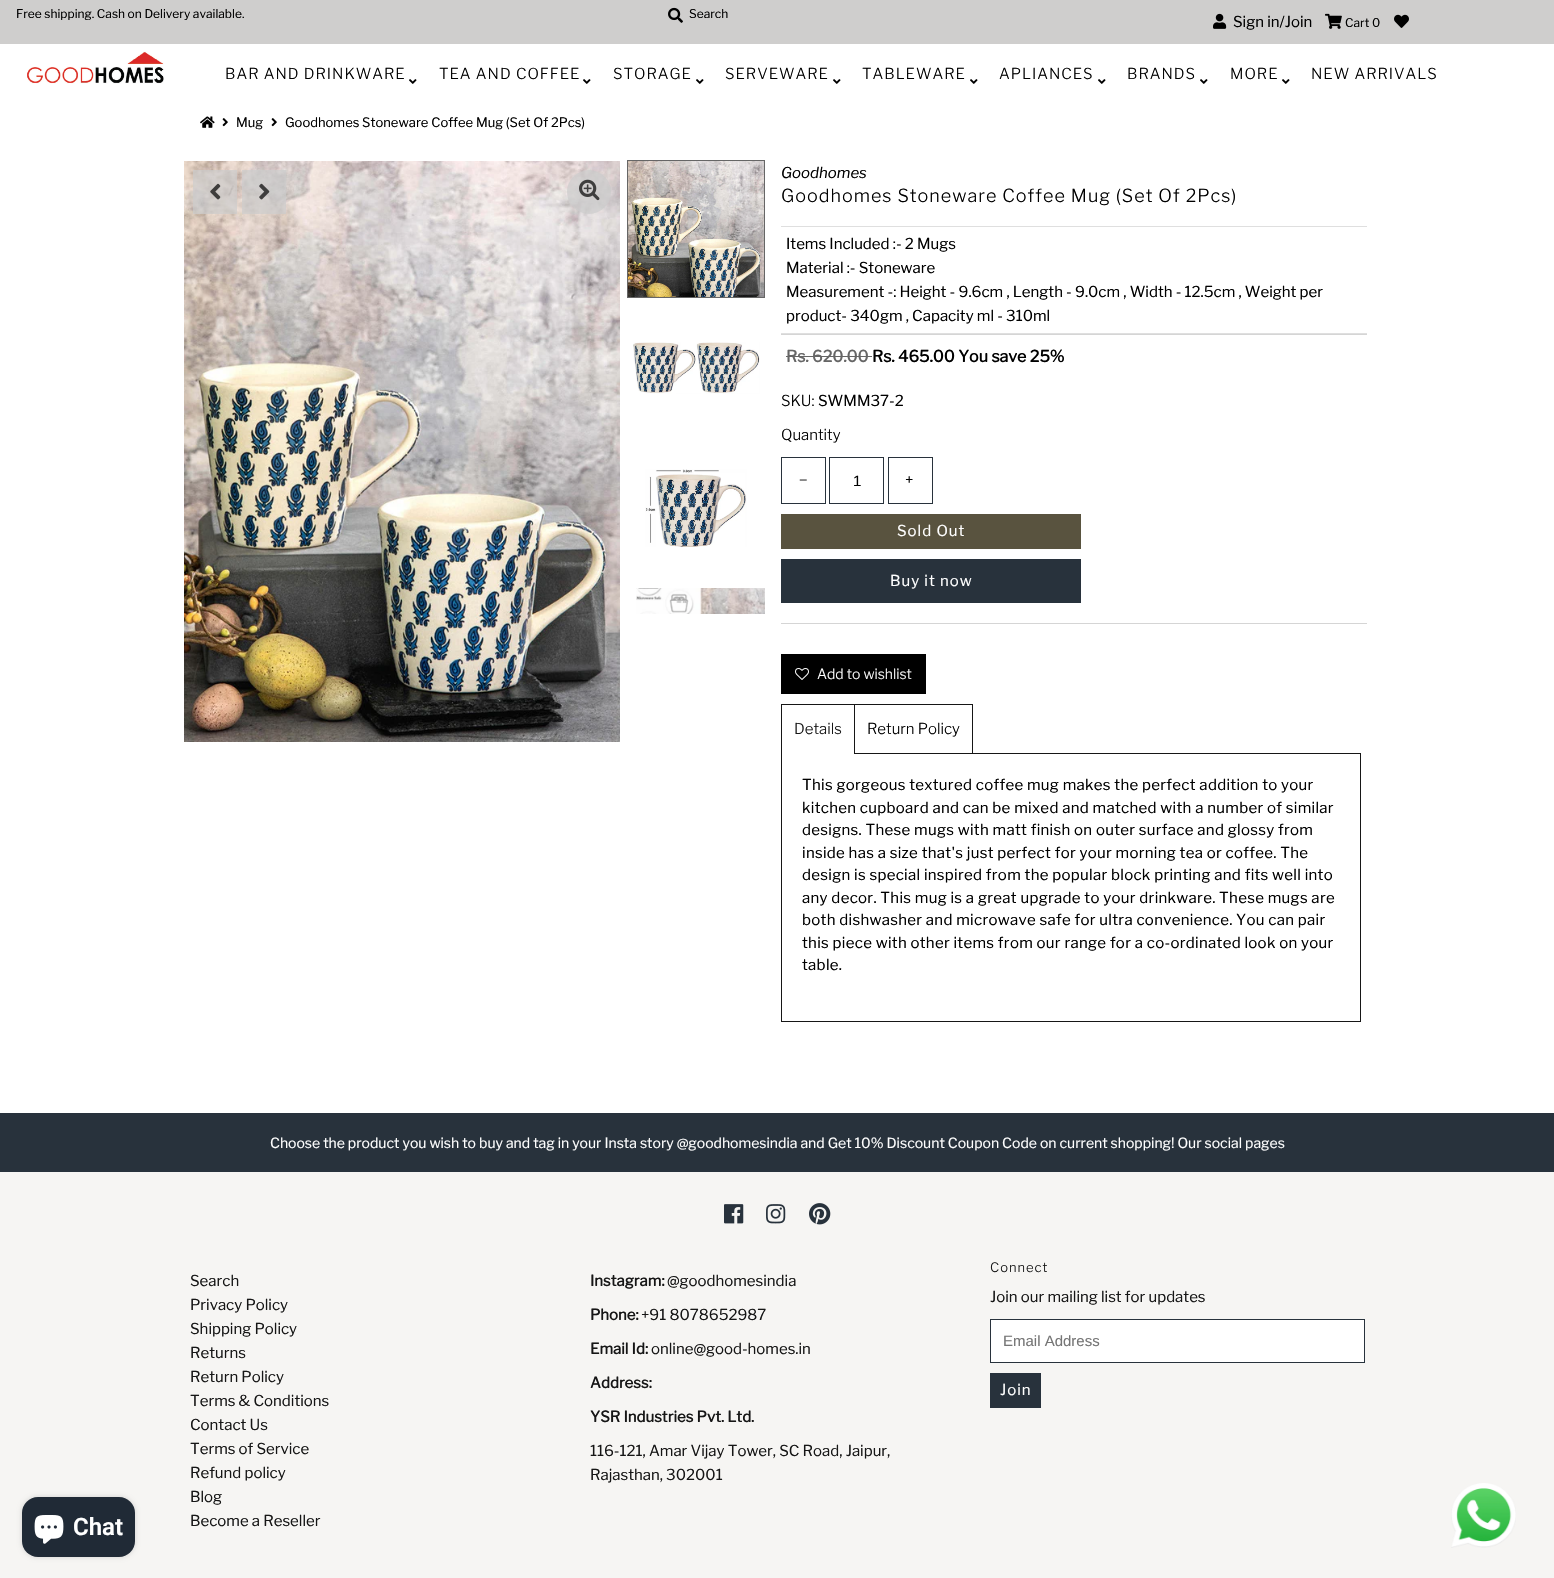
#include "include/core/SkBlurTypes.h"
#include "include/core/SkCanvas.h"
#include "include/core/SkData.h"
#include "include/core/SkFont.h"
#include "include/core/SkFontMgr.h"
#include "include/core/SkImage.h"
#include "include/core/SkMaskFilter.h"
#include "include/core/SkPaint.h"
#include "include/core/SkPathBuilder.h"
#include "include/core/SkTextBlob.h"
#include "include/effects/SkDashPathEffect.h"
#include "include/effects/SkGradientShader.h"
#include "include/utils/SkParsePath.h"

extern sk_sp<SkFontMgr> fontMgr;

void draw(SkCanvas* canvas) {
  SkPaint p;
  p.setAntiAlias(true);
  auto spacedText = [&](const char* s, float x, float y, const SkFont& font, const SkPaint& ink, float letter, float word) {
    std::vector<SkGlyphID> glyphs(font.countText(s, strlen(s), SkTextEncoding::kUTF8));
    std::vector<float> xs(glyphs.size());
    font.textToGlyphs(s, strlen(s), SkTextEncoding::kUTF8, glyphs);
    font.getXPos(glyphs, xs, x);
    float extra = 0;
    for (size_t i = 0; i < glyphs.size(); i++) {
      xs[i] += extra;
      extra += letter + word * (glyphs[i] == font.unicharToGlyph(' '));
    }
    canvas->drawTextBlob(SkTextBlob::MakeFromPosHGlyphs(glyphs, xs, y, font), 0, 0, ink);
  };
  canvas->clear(SK_ColorWHITE);
  p.setColor(SkColorSetRGB(207, 206, 205));
  canvas->drawRect(SkRect::MakeLTRB(0, 0, 1554, 44), p);
  canvas->drawImageRect(SkImages::DeferredFromEncodedData(SkData::MakeFromFileName("images/1.png")), SkRect::MakeLTRB(668, 7, 683, 23), SkSamplingOptions());
  canvas->drawImageRect(SkImages::DeferredFromEncodedData(SkData::MakeFromFileName("images/2.png")), SkRect::MakeLTRB(1213, 13, 1227, 29), SkSamplingOptions());
  canvas->drawImageRect(SkImages::DeferredFromEncodedData(SkData::MakeFromFileName("images/3.png")), SkRect::MakeLTRB(1325, 13, 1342, 29), SkSamplingOptions());
  canvas->drawImageRect(SkImages::DeferredFromEncodedData(SkData::MakeFromFileName("images/4.png")), SkRect::MakeLTRB(1394, 14, 1409, 28), SkSamplingOptions());
  canvas->drawImageRect(SkImages::DeferredFromEncodedData(SkData::MakeFromFileName("images/5.png")), SkRect::MakeLTRB(27, 51, 164, 84), SkSamplingOptions());
  canvas->drawImageRect(SkImages::DeferredFromEncodedData(SkData::MakeFromFileName("images/6.png")), SkRect::MakeLTRB(409, 79, 417, 84), SkSamplingOptions());
  canvas->drawImageRect(SkImages::DeferredFromEncodedData(SkData::MakeFromFileName("images/6.png")), SkRect::MakeLTRB(583, 79, 591, 84), SkSamplingOptions());
  canvas->drawImageRect(SkImages::DeferredFromEncodedData(SkData::MakeFromFileName("images/6.png")), SkRect::MakeLTRB(696, 79, 704, 84), SkSamplingOptions());
  canvas->drawImageRect(SkImages::DeferredFromEncodedData(SkData::MakeFromFileName("images/6.png")), SkRect::MakeLTRB(833, 79, 841, 84), SkSamplingOptions());
  canvas->drawImageRect(SkImages::DeferredFromEncodedData(SkData::MakeFromFileName("images/6.png")), SkRect::MakeLTRB(970, 79, 978, 84), SkSamplingOptions());
  canvas->drawImageRect(SkImages::DeferredFromEncodedData(SkData::MakeFromFileName("images/6.png")), SkRect::MakeLTRB(1098, 79, 1106, 84), SkSamplingOptions());
  canvas->drawImageRect(SkImages::DeferredFromEncodedData(SkData::MakeFromFileName("images/6.png")), SkRect::MakeLTRB(1200, 79, 1208, 84), SkSamplingOptions());
  canvas->drawImageRect(SkImages::DeferredFromEncodedData(SkData::MakeFromFileName("images/6.png")), SkRect::MakeLTRB(1282, 79, 1290, 84), SkSamplingOptions());
  p.setColor(SkColorSetRGB(246, 245, 243));
  canvas->drawRect(SkRect::MakeLTRB(0, 1172, 1554, 1578), p);
  canvas->drawImageRect(SkImages::DeferredFromEncodedData(SkData::MakeFromFileName("images/7.png")), SkRect::MakeLTRB(1451, 1483, 1516, 1548), SkSamplingOptions());
  canvas->drawImageRect(SkImages::DeferredFromEncodedData(SkData::MakeFromFileName("images/8.png")), SkRect::MakeLTRB(200, 116, 215, 128), SkSamplingOptions());
  canvas->drawImageRect(SkImages::DeferredFromEncodedData(SkData::MakeFromFileName("images/9.png")), SkRect::MakeLTRB(222, 118, 228, 127), SkSamplingOptions());
  canvas->drawImageRect(SkImages::DeferredFromEncodedData(SkData::MakeFromFileName("images/9.png")), SkRect::MakeLTRB(271, 118, 277, 127), SkSamplingOptions());
  canvas->drawImageRect(SkImages::DeferredFromEncodedData(SkData::MakeFromFileName("images/10.png")), SkRect::MakeLTRB(184, 161, 620, 742), SkSamplingOptions());
  p.setColor(SkColorSetARGB(179, 204, 204, 204));
  canvas->drawCircle(589, 192, 22, p);
  canvas->drawImageRect(SkImages::DeferredFromEncodedData(SkData::MakeFromFileName("images/11.png")), SkRect::MakeLTRB(579, 179, 600, 201), SkSamplingOptions());
  canvas->drawRect(SkRect::MakeLTRB(193, 170, 237, 214), p);
  canvas->drawImageRect(SkImages::DeferredFromEncodedData(SkData::MakeFromFileName("images/12.png")), SkRect::MakeLTRB(210, 183, 221, 200), SkSamplingOptions());
  canvas->drawRect(SkRect::MakeLTRB(242, 170, 286, 214), p);
  canvas->drawImageRect(SkImages::DeferredFromEncodedData(SkData::MakeFromFileName("images/13.png")), SkRect::MakeLTRB(259, 183, 270, 200), SkSamplingOptions());
  canvas->drawImageRect(SkImages::DeferredFromEncodedData(SkData::MakeFromFileName("images/14.png")), SkRect::MakeLTRB(628, 161, 764, 297), SkSamplingOptions());
  p.setStyle(SkPaint::kStroke_Style);
  p.setStrokeWidth(1);
  p.setColor(SkColorSetRGB(102, 102, 102));
  canvas->drawRect(SkRect::MakeLTRB(627.5f, 160.5f, 764.5f, 297.5f), p);
  canvas->drawImageRect(SkImages::DeferredFromEncodedData(SkData::MakeFromFileName("images/15.png")), SkRect::MakeLTRB(633, 342, 760, 394), SkSamplingOptions());
  canvas->drawImageRect(SkImages::DeferredFromEncodedData(SkData::MakeFromFileName("images/16.png")), SkRect::MakeLTRB(645, 469, 747, 547), SkSamplingOptions());
  canvas->drawImageRect(SkImages::DeferredFromEncodedData(SkData::MakeFromFileName("images/17.png")), SkRect::MakeLTRB(636, 588, 765, 614), SkSamplingOptions());
  p.setStyle(SkPaint::kFill_Style);
  p.setColor(SkColorSetRGB(223, 223, 223));
  canvas->drawRect(SkRect::MakeLTRB(781, 226, 1367, 227), p);
  canvas->drawRect(SkRect::MakeLTRB(781, 333, 1367, 334), p);
  p.setColor(SkColorSetRGB(213, 213, 213));
  canvas->drawRect(SkRect::MakeLTRB(781, 334, 1367, 335), p);
  canvas->drawRect(SkRect::MakeLTRB(781, 623, 1367, 624), p);
  p.setColor(SkColorSetRGB(102, 102, 102));
  canvas->drawRect(SkRect::MakeLTRB(786, 356, 872, 357), p);
  p.setStyle(SkPaint::kStroke_Style);
  p.setColor(SkColorSetRGB(40, 50, 60));
  canvas->drawRect(SkRect::MakeLTRB(781.5f, 457.5f, 825.5f, 503.5f), p);
  canvas->drawRect(SkRect::MakeLTRB(829.5f, 457.5f, 883.5f, 503.5f), p);
  canvas->drawRect(SkRect::MakeLTRB(888.5f, 457.5f, 932.5f, 503.5f), p);
  p.setStyle(SkPaint::kFill_Style);
  p.setColor(SkColorSetRGB(89, 83, 63));
  canvas->drawRect(SkRect::MakeLTRB(781, 514, 1081, 549), p);
  p.setColor(SkColorSetRGB(40, 50, 60));
  canvas->drawRect(SkRect::MakeLTRB(781, 559, 1081, 603), p);
  p.setColor(SK_ColorBLACK);
  canvas->drawRect(SkRect::MakeLTRB(781, 654, 926, 694), p);
  canvas->drawImageRect(SkImages::DeferredFromEncodedData(SkData::MakeFromFileName("images/18.png")), SkRect::MakeLTRB(795, 668, 809, 680), SkSamplingOptions());
  p.setColor(SkColorSetRGB(22, 22, 22));
  canvas->drawRect(SkRect::MakeLTRB(781, 704, 973, 705), p);
  canvas->drawRect(SkRect::MakeLTRB(854, 704, 855, 753), p);
  canvas->drawRect(SkRect::MakeLTRB(781, 704, 782, 753), p);
  p.setStyle(SkPaint::kStroke_Style);
  canvas->drawRect(SkRect::MakeLTRB(781.5f, 753.5f, 1360.5f, 1021.5f), p);
  p.setStyle(SkPaint::kFill_Style);
  p.setColor(SK_ColorWHITE);
  canvas->drawRect(SkRect::MakeLTRB(782, 753, 854, 754), p);
  p.setColor(SkColorSetRGB(22, 22, 22));
  canvas->drawRect(SkRect::MakeLTRB(972, 704, 973, 753), p);
  p.setColor(SkColorSetRGB(40, 50, 60));
  canvas->drawRect(SkRect::MakeLTRB(0, 1113, 1554, 1172), p);
  canvas->drawImageRect(SkImages::DeferredFromEncodedData(SkData::MakeFromFileName("images/19.png")), SkRect::MakeLTRB(724, 1204, 744, 1224), SkSamplingOptions());
  canvas->drawImageRect(SkImages::DeferredFromEncodedData(SkData::MakeFromFileName("images/20.png")), SkRect::MakeLTRB(766, 1204, 786, 1224), SkSamplingOptions());
  canvas->drawImageRect(SkImages::DeferredFromEncodedData(SkData::MakeFromFileName("images/21.png")), SkRect::MakeLTRB(809, 1203, 831, 1225), SkSamplingOptions());
  p.setColor(SK_ColorWHITE);
  canvas->drawRect(SkRect::MakeLTRB(990.5f, 1319.5f, 1364.5f, 1362.5f), p);
  p.setStyle(SkPaint::kStroke_Style);
  p.setColor(SkColorSetRGB(40, 50, 60));
  canvas->drawRect(SkRect::MakeLTRB(990.5f, 1319.5f, 1364.5f, 1362.5f), p);
  p.setStyle(SkPaint::kFill_Style);
  canvas->drawRect(SkRect::MakeLTRB(990, 1373, 1041, 1408), p);
  p.setColor(SkColorSetARGB(38, 0, 0, 0));
  p.setMaskFilter(SkMaskFilter::MakeBlur(kNormal_SkBlurStyle, 2.5f));
  canvas->drawRoundRect(SkRect::MakeLTRB(22, 1497, 135, 1557), 16, 16, p);
  p.setMaskFilter(nullptr);
  p.setColor(SkColorSetRGB(32, 42, 54));
  canvas->drawRoundRect(SkRect::MakeLTRB(22, 1497, 135, 1557), 16, 16, p);
  canvas->drawImageRect(SkImages::DeferredFromEncodedData(SkData::MakeFromFileName("images/22.png")), SkRect::MakeLTRB(34, 1515, 64, 1544), SkSamplingOptions());
  SkFont font1(fontMgr->matchFamilyStyle("Libre Franklin", SkFontStyle::Normal()), 12);
  font1.setSubpixel(true);
  p.setColor(SK_ColorBLACK);
  canvas->drawString("Free shipping. Cash on Delivery available.", 16, 18, font1, p);
  canvas->drawString("Search", 689, 18, font1, p);
  SkFont font2(fontMgr->matchFamilyStyle("Libre Franklin", SkFontStyle::Normal()), 15);
  font2.setSubpixel(true);
  canvas->drawString("Sign in/Join", 1233, 27, font2, p);
  canvas->drawString("Cart", 1345, 27, font1, p);
  canvas->drawString("0", 1372, 27, font1, p);
  SkFont font3(fontMgr->matchFamilyStyle("Libre Franklin", SkFontStyle(300, SkFontStyle::kNormal_Width, SkFontStyle::kUpright_Slant)), 15);
  font3.setSubpixel(true);
  spacedText("BAR AND DRINKWARE", 225, 79, font3, p, 1, 0);
  spacedText("TEA AND COFFEE", 439, 79, font3, p, 1, 0);
  spacedText("STORAGE", 613, 79, font3, p, 1, 0);
  spacedText("SERVEWARE", 725, 79, font3, p, 1, 0);
  spacedText("TABLEWARE", 862, 79, font3, p, 1, 0);
  spacedText("APLIANCES", 999, 79, font3, p, 1, 0);
  spacedText("BRANDS", 1127, 79, font3, p, 1, 0);
  spacedText("MORE", 1230, 79, font3, p, 1, 0);
  spacedText("NEW ARRIVALS", 1311, 79, font3, p, 1, 0);
  SkFont font4(fontMgr->matchFamilyStyle("Libre Franklin", SkFontStyle::Normal()), 13);
  font4.setSubpixel(true);
  canvas->drawString("Mug", 236, 127, font4, p);
  canvas->drawString("Goodhomes Stoneware Coffee Mug (Set Of 2Pcs)", 285, 127, font4, p);
  SkFont font5(fontMgr->matchFamilyStyle("Libre Franklin", SkFontStyle::Italic()), 15);
  font5.setSubpixel(true);
  canvas->drawString("Goodhomes", 781, 178, font5, p);
  SkFont font6(fontMgr->matchFamilyStyle("Libre Franklin", SkFontStyle(300, SkFontStyle::kNormal_Width, SkFontStyle::kUpright_Slant)), 18);
  font6.setSubpixel(true);
  spacedText("Goodhomes Stoneware Coffee Mug (Set Of 2Pcs)", 781, 202, font6, p, 1, 0);
  canvas->drawString("Items Included :- 2 Mugs", 786, 249, font2, p);
  canvas->drawString("Material :- Stoneware", 786, 273, font2, p);
  canvas->drawString("Measurement -: Height - 9.6cm , Length - 9.0cm , Width - 12.5cm , Weight per", 786, 297, font2, p);
  canvas->drawString("product- 340gm , Capacity ml - 310ml", 786, 321, font2, p);
  SkFont font7(fontMgr->matchFamilyStyle("Libre Franklin", SkFontStyle::Bold()), 16);
  font7.setSubpixel(true);
  p.setColor(SkColorSetRGB(102, 102, 102));
  canvas->drawString("Rs. 620.00", 786, 362, font7, p);
  p.setColor(SK_ColorBLACK);
  canvas->drawString("Rs. 465.00 You save 25%", 872, 362, font7, p);
  canvas->drawString("SKU:", 781, 406, font3, p);
  canvas->drawString("SWMM37-2", 818, 406, font2, p);
  canvas->drawString("Quantity", 781, 440, font3, p);
  SkFont font8(fontMgr->matchFamilyStyle("Liberation Serif", SkFontStyle::Normal()), 15);
  font8.setSubpixel(true);
  spacedText("−", 799, 485, font8, p, 1, 0);
  SkFont font9(fontMgr->matchFamilyStyle("Liberation Sans", SkFontStyle::Normal()), 15);
  font9.setSubpixel(true);
  canvas->drawString("1", 853, 486, font9, p);
  spacedText("+", 905, 485, font2, p, 1, 0);
  p.setColor(SK_ColorWHITE);
  spacedText("Sold Out", 897, 536, font2, p, 1, 0);
  spacedText("Buy it now", 890, 586, font2, p, 1, 0);
  SkFont font10(fontMgr->matchFamilyStyle("Libre Franklin", SkFontStyle(300, SkFontStyle::kNormal_Width, SkFontStyle::kUpright_Slant)), 14);
  font10.setSubpixel(true);
  canvas->drawString("Add to wishlist", 817, 679, font10, p);
  p.setColor(SkColorSetRGB(22, 22, 22));
  canvas->drawString("Details", 794, 734, font3, p);
  p.setColor(SK_ColorBLACK);
  canvas->drawString("Return Policy", 867, 734, font3, p);
  spacedText("This gorgeous textured coffee mug makes the perfect addition to your", 802, 790, font2, p, 0.3f, 0);
  spacedText("kitchen cupboard and can be mixed and matched with a number of similar", 802, 813, font2, p, 0.3f, 0);
  spacedText("designs. These mugs with matt finish on outer surface and glossy from", 802, 835, font2, p, 0.3f, 0);
  spacedText("inside has a size that's just perfect for your morning tea or coffee. The", 802, 858, font2, p, 0.3f, 0);
  spacedText("design is special inspired from the popular block printing and fits well into", 802, 880, font2, p, 0.3f, 0);
  spacedText("any decor. This mug is a great upgrade to your drinkware. These mugs are", 802, 903, font2, p, 0.3f, 0);
  spacedText("both dishwasher and microwave safe for ultra convenience. You can pair", 802, 925, font2, p, 0.3f, 0);
  spacedText("this piece with other items from our range for a co-ordinated look on your", 802, 948, font2, p, 0.3f, 0);
  spacedText("table.", 802, 970, font2, p, 0.3f, 0);
  SkFont font11(fontMgr->matchFamilyStyle("Libre Franklin", SkFontStyle::Normal()), 14);
  font11.setSubpixel(true);
  p.setColor(SK_ColorWHITE);
  canvas->drawString("Choose the product you wish to buy and tag in your Insta story @goodhomesindia and Get 10% Discount Coupon Code on current shopping! Our social pages", 270, 1148, font11, p);
  p.setColor(SkColorSetRGB(22, 22, 22));
  canvas->drawString("Search", 190, 1286, font2, p);
  canvas->drawString("Privacy Policy", 190, 1310, font2, p);
  canvas->drawString("Shipping Policy", 190, 1334, font2, p);
  canvas->drawString("Returns", 190, 1358, font2, p);
  canvas->drawString("Return Policy", 190, 1382, font2, p);
  canvas->drawString("Terms & Conditions", 190, 1406, font2, p);
  canvas->drawString("Contact Us", 190, 1430, font2, p);
  canvas->drawString("Terms of Service", 190, 1454, font2, p);
  canvas->drawString("Refund policy", 190, 1478, font2, p);
  canvas->drawString("Blog", 190, 1502, font2, p);
  canvas->drawString("Become a Reseller", 190, 1526, font2, p);
  SkFont font12(fontMgr->matchFamilyStyle("Libre Franklin", SkFontStyle::Bold()), 15);
  font12.setSubpixel(true);
  canvas->drawString("Instagram:", 590, 1286, font12, p);
  canvas->drawString("@goodhomesindia", 667, 1286, font2, p);
  canvas->drawString("Phone:", 590, 1320, font12, p);
  canvas->drawString("+91 8078652987", 641, 1320, font2, p);
  canvas->drawString("Email Id:", 590, 1354, font12, p);
  canvas->drawString("online@good-homes.in", 651, 1354, font2, p);
  canvas->drawString("Address:", 590, 1388, font12, p);
  canvas->drawString("YSR Industries Pvt. Ltd.", 590, 1422, font12, p);
  canvas->drawString("116-121, Amar Vijay Tower, SC Road, Jaipur,", 590, 1456, font2, p);
  canvas->drawString("Rajasthan, 302001", 590, 1480, font2, p);
  SkFont font13(fontMgr->matchFamilyStyle("Libre Franklin", SkFontStyle(300, SkFontStyle::kNormal_Width, SkFontStyle::kUpright_Slant)), 13);
  font13.setSubpixel(true);
  spacedText("Connect", 990, 1272, font13, p, 1, 0);
  canvas->drawString("Join our mailing list for updates", 990, 1302, font2, p);
  p.setColor(SkColorSetRGB(117, 117, 117));
  canvas->drawString("Email Address", 1003, 1346, font9, p);
  p.setColor(SK_ColorWHITE);
  spacedText("Join", 1000, 1395, font2, p, 1, 0);
  SkFont font14(fontMgr->matchFamilyStyle("Roboto", SkFontStyle(600, SkFontStyle::kNormal_Width, SkFontStyle::kUpright_Slant)), 24);
  font14.setSubpixel(true);
  canvas->drawString("Chat", 73, 1535, font14, p);
}
